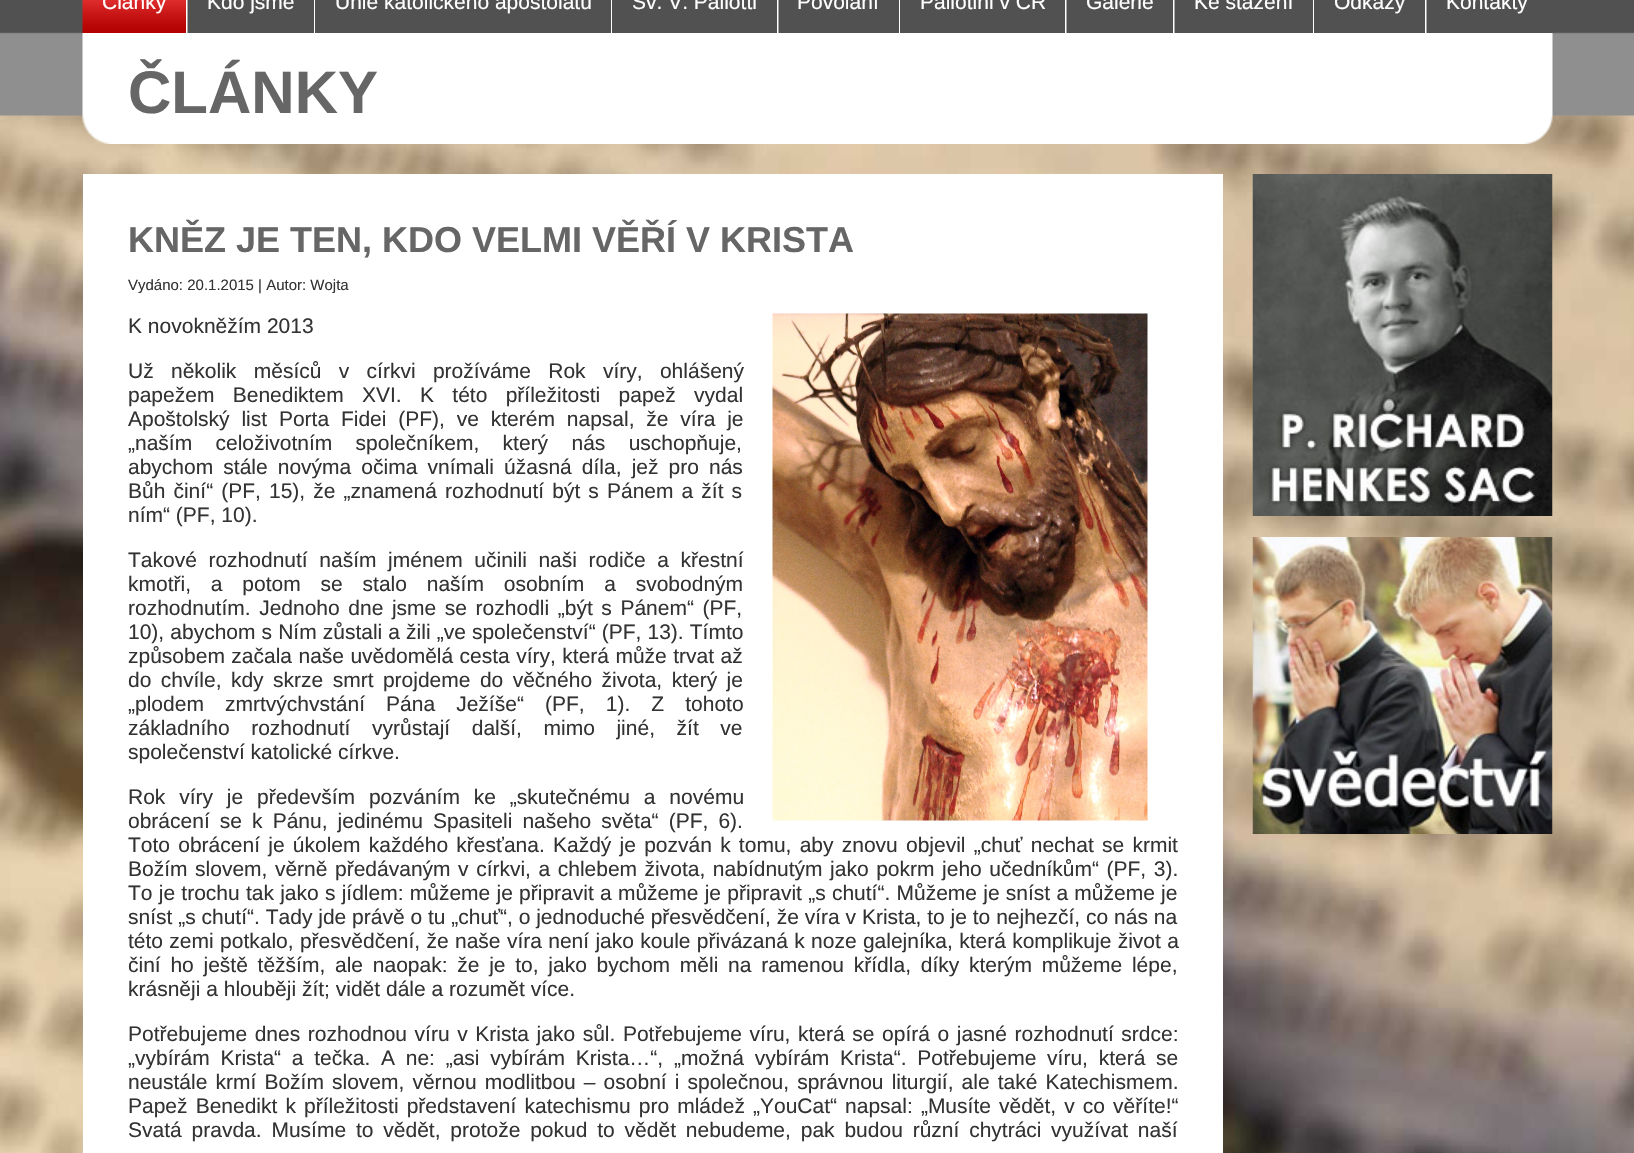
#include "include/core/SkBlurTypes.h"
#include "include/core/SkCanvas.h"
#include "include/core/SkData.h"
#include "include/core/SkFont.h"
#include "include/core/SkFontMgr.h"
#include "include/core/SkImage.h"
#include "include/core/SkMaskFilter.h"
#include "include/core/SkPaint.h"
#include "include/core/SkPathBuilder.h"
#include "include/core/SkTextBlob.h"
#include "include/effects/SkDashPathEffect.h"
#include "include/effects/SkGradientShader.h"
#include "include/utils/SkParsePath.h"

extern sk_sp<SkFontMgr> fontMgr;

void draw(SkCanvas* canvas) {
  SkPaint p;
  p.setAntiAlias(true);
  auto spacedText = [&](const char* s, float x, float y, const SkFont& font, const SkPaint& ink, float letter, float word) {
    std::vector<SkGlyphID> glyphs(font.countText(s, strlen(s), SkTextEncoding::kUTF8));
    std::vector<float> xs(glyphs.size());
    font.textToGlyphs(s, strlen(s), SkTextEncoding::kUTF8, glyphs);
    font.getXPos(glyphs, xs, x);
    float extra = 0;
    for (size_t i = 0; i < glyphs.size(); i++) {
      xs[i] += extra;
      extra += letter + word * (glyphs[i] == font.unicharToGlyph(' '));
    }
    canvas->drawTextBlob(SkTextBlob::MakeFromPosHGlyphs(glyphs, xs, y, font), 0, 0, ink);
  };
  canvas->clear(SK_ColorWHITE);
  canvas->drawImageRect(SkImages::DeferredFromEncodedData(SkData::MakeFromFileName("images/1.png")), SkRect::MakeLTRB(0, 115, 1634, 1153), SkSamplingOptions());
  canvas->drawImageRect(SkImages::DeferredFromEncodedData(SkData::MakeFromFileName("images/2.png")), SkRect::MakeLTRB(0, 0, 1634, 116), SkSamplingOptions());
  canvas->drawImageRect(SkImages::DeferredFromEncodedData(SkData::MakeFromFileName("images/3.png")), SkRect::MakeLTRB(82, 32, 1553, 33), SkSamplingOptions());
  canvas->drawImageRect(SkImages::DeferredFromEncodedData(SkData::MakeFromFileName("images/4.png")), SkRect::MakeLTRB(82, 0, 186, 33), SkSamplingOptions());
  p.setColor(SK_ColorWHITE);
  canvas->drawRect(SkRect::MakeLTRB(186, 0, 187, 33), p);
  p.setColor(SkColorSetRGB(169, 169, 169));
  canvas->drawRect(SkRect::MakeLTRB(187, 0, 188, 33), p);
  p.setColor(SK_ColorWHITE);
  canvas->drawRect(SkRect::MakeLTRB(314, 0, 315, 33), p);
  canvas->drawRect(SkRect::MakeLTRB(611, 0, 612, 33), p);
  canvas->drawRect(SkRect::MakeLTRB(777, 0, 778, 33), p);
  p.setColor(SkColorSetRGB(169, 169, 169));
  canvas->drawRect(SkRect::MakeLTRB(778, 0, 779, 33), p);
  p.setColor(SK_ColorWHITE);
  canvas->drawRect(SkRect::MakeLTRB(899, 0, 900, 33), p);
  canvas->drawRect(SkRect::MakeLTRB(1065, 0, 1066, 33), p);
  p.setColor(SkColorSetRGB(169, 169, 169));
  canvas->drawRect(SkRect::MakeLTRB(1066, 0, 1067, 33), p);
  p.setColor(SK_ColorWHITE);
  canvas->drawRect(SkRect::MakeLTRB(1173, 0, 1174, 33), p);
  p.setColor(SkColorSetRGB(169, 169, 169));
  canvas->drawRect(SkRect::MakeLTRB(1174, 0, 1175, 33), p);
  p.setColor(SK_ColorWHITE);
  canvas->drawRect(SkRect::MakeLTRB(1313, 0, 1314, 33), p);
  canvas->drawRect(SkRect::MakeLTRB(1425, 0, 1426, 33), p);
  p.setColor(SkColorSetRGB(169, 169, 169));
  canvas->drawRect(SkRect::MakeLTRB(1426, 0, 1427, 33), p);
  canvas->drawImageRect(SkImages::DeferredFromEncodedData(SkData::MakeFromFileName("images/5.png")), SkRect::MakeLTRB(82, 33, 1553, 144), SkSamplingOptions());
  p.setColor(SK_ColorWHITE);
  canvas->drawRect(SkRect::MakeLTRB(83, 174, 1223, 1153), p);
  canvas->drawImageRect(SkImages::DeferredFromEncodedData(SkData::MakeFromFileName("images/6.png")), SkRect::MakeLTRB(772, 313, 1148, 821), SkSamplingOptions());
  canvas->drawImageRect(SkImages::DeferredFromEncodedData(SkData::MakeFromFileName("images/7.png")), SkRect::MakeLTRB(1252, 174, 1553, 516), SkSamplingOptions());
  canvas->drawImageRect(SkImages::DeferredFromEncodedData(SkData::MakeFromFileName("images/8.png")), SkRect::MakeLTRB(1252, 537, 1553, 834), SkSamplingOptions());
  SkFont font1(fontMgr->matchFamilyStyle("Liberation Sans", SkFontStyle::Normal()), 21);
  font1.setSubpixel(true);
  canvas->drawString("Články", 102, 9, font1, p);
  canvas->drawString("Kdo jsme", 207, 9, font1, p);
  canvas->drawString("Unie katolického apoštolátu", 335, 9, font1, p);
  canvas->drawString("Sv. V. Pallotti", 632, 9, font1, p);
  canvas->drawString("Povolání", 797, 9, font1, p);
  canvas->drawString("Pallotini v ČR", 920, 9, font1, p);
  canvas->drawString("Galerie", 1086, 9, font1, p);
  canvas->drawString("Ke stažení", 1194, 9, font1, p);
  canvas->drawString("Odkazy", 1334, 9, font1, p);
  canvas->drawString("Kontakty", 1446, 9, font1, p);
  SkFont font2(fontMgr->matchFamilyStyle("Liberation Sans", SkFontStyle::Bold()), 60);
  font2.setSubpixel(true);
  p.setColor(SkColorSetRGB(102, 102, 102));
  canvas->drawString("ČLÁNKY", 128, 113, font2, p);
  SkFont font3(fontMgr->matchFamilyStyle("Liberation Sans", SkFontStyle::Bold()), 36);
  font3.setSubpixel(true);
  canvas->drawString("KNĚZ JE TEN, KDO VELMI VĚŘÍ V KRISTA", 128, 252, font3, p);
  SkFont font4(fontMgr->matchFamilyStyle("Liberation Sans", SkFontStyle::Normal()), 15);
  font4.setSubpixel(true);
  p.setColor(SkColorSetRGB(51, 51, 51));
  canvas->drawString("Vydáno: 20.1.2015 | Autor: Wojta", 128, 290, font4, p);
  canvas->drawString("K novokněžím 2013", 128, 333, font1, p);
  spacedText("Už několik měsíců v církvi prožíváme Rok víry, ohlášený", 128, 378, font1, p, 0, 11.5f);
  spacedText("papežem Benediktem XVI. K této příležitosti papež vydal", 128, 402, font1, p, 0, 12.5f);
  spacedText("Apoštolský list Porta Fidei (PF), ve kterém napsal, že víra je", 128, 426, font1, p, 0, 6);
  spacedText("„naším celoživotním společníkem, který nás uschopňuje,", 128, 450, font1, p, 0, 17.5f);
  spacedText("abychom stále novýma očima vnímali úžasná díla, jež pro nás", 128, 474, font1, p, 0, 4.25f);
  spacedText("Bůh činí“ (PF, 15), že „znamená rozhodnutí být s Pánem a žít s", 128, 498, font1, p, 0, 2.25f);
  canvas->drawString("ním“ (PF, 10).", 128, 522, font1, p);
  spacedText("Takové rozhodnutí naším jménem učinili naši rodiče a křestní", 128, 567, font1, p, 0, 5.75f);
  spacedText("kmotři, a potom se stalo naším osobním a svobodným", 128, 591, font1, p, 0, 14);
  spacedText("rozhodnutím. Jednoho dne jsme se rozhodli „být s Pánem“ (PF,", 128, 615, font1, p, 0, 2.75f);
  spacedText("10), abychom s Ním zůstali a žili „ve společenství“ (PF, 13). Tímto", 128, 639, font1, p, 0, 0.25f);
  spacedText("způsobem začala naše uvědomělá cesta víry, která může trvat až", 128, 663, font1, p, 0, 0.6f);
  spacedText("do chvíle, kdy skrze smrt projdeme do věčného života, který je", 128, 687, font1, p, 0, 3.6f);
  spacedText("„plodem zmrtvýchvstání Pána Ježíše“ (PF, 1). Z tohoto", 128, 711, font1, p, 0, 15.25f);
  spacedText("základního rozhodnutí vyrůstají další, mimo jiné, žít ve", 128, 735, font1, p, 0, 15.75f);
  canvas->drawString("společenství katolické církve.", 128, 759, font1, p);
  spacedText("Rok víry je především pozváním ke „skutečnému a novému", 128, 804, font1, p, 0, 8);
  spacedText("obrácení se k Pánu, jedinému Spasiteli našeho světa“ (PF, 6).", 128, 828, font1, p, 0, 4.25f);
  spacedText("Toto obrácení je úkolem každého křesťana. Každý je pozván k tomu, aby znovu objevil „chuť nechat se krmit", 128, 852, font1, p, 0, 2.4f);
  spacedText("Božím slovem, věrně předávaným v církvi, a chlebem života, nabídnutým jako pokrm jeho učedníkům“ (PF, 3).", 128, 876, font1, p, 0, 1.7f);
  spacedText("To je trochu tak jako s jídlem: můžeme je připravit a můžeme je připravit „s chutí“. Můžeme je sníst a můžeme je", 128, 900, font1, p, 0, 0.4f);
  canvas->drawString("sníst „s chutí“. Tady jde právě o tu „chuť“, o jednoduché přesvědčení, že víra v Krista, to je to nejhezčí, co nás na", 128, 924, font1, p);
  spacedText("této zemi potkalo, přesvědčení, že naše víra není jako koule přivázaná k noze galejníka, která komplikuje život a", 128, 948, font1, p, 0, 0.5f);
  spacedText("činí ho ještě těžším, ale naopak: že je to, jako bychom měli na ramenou křídla, díky kterým můžeme lépe,", 128, 972, font1, p, 0, 3.9f);
  canvas->drawString("krásněji a hlouběji žít; vidět dále a rozumět více.", 128, 996, font1, p);
  spacedText("Potřebujeme dnes rozhodnou víru v Krista jako sůl. Potřebujeme víru, která se opírá o jasné rozhodnutí srdce:", 128, 1041, font1, p, 0, 1.75f);
  spacedText("„vybírám Krista“ a tečka. A ne: „asi vybírám Krista…“, „možná vybírám Krista“. Potřebujeme víru, která se", 128, 1065, font1, p, 0, 4.9f);
  spacedText("neustále krmí Božím slovem, věrnou modlitbou – osobní i společnou, správnou liturgií, ale také Katechismem.", 128, 1089, font1, p, 0, 2.25f);
  spacedText("Papež Benedikt k příležitosti představení katechismu pro mládež „YouCat“ napsal: „Musíte vědět, v co věříte!“", 128, 1113, font1, p, 0, 2.25f);
  spacedText("Svatá pravda. Musíme to vědět, protože pokud to vědět nebudeme, pak budou různí chytráci", 128, 1137, font1, p, 0, 4);
  spacedText("využívat naší", 1051, 1137, font1, p, 0, 4);
}
